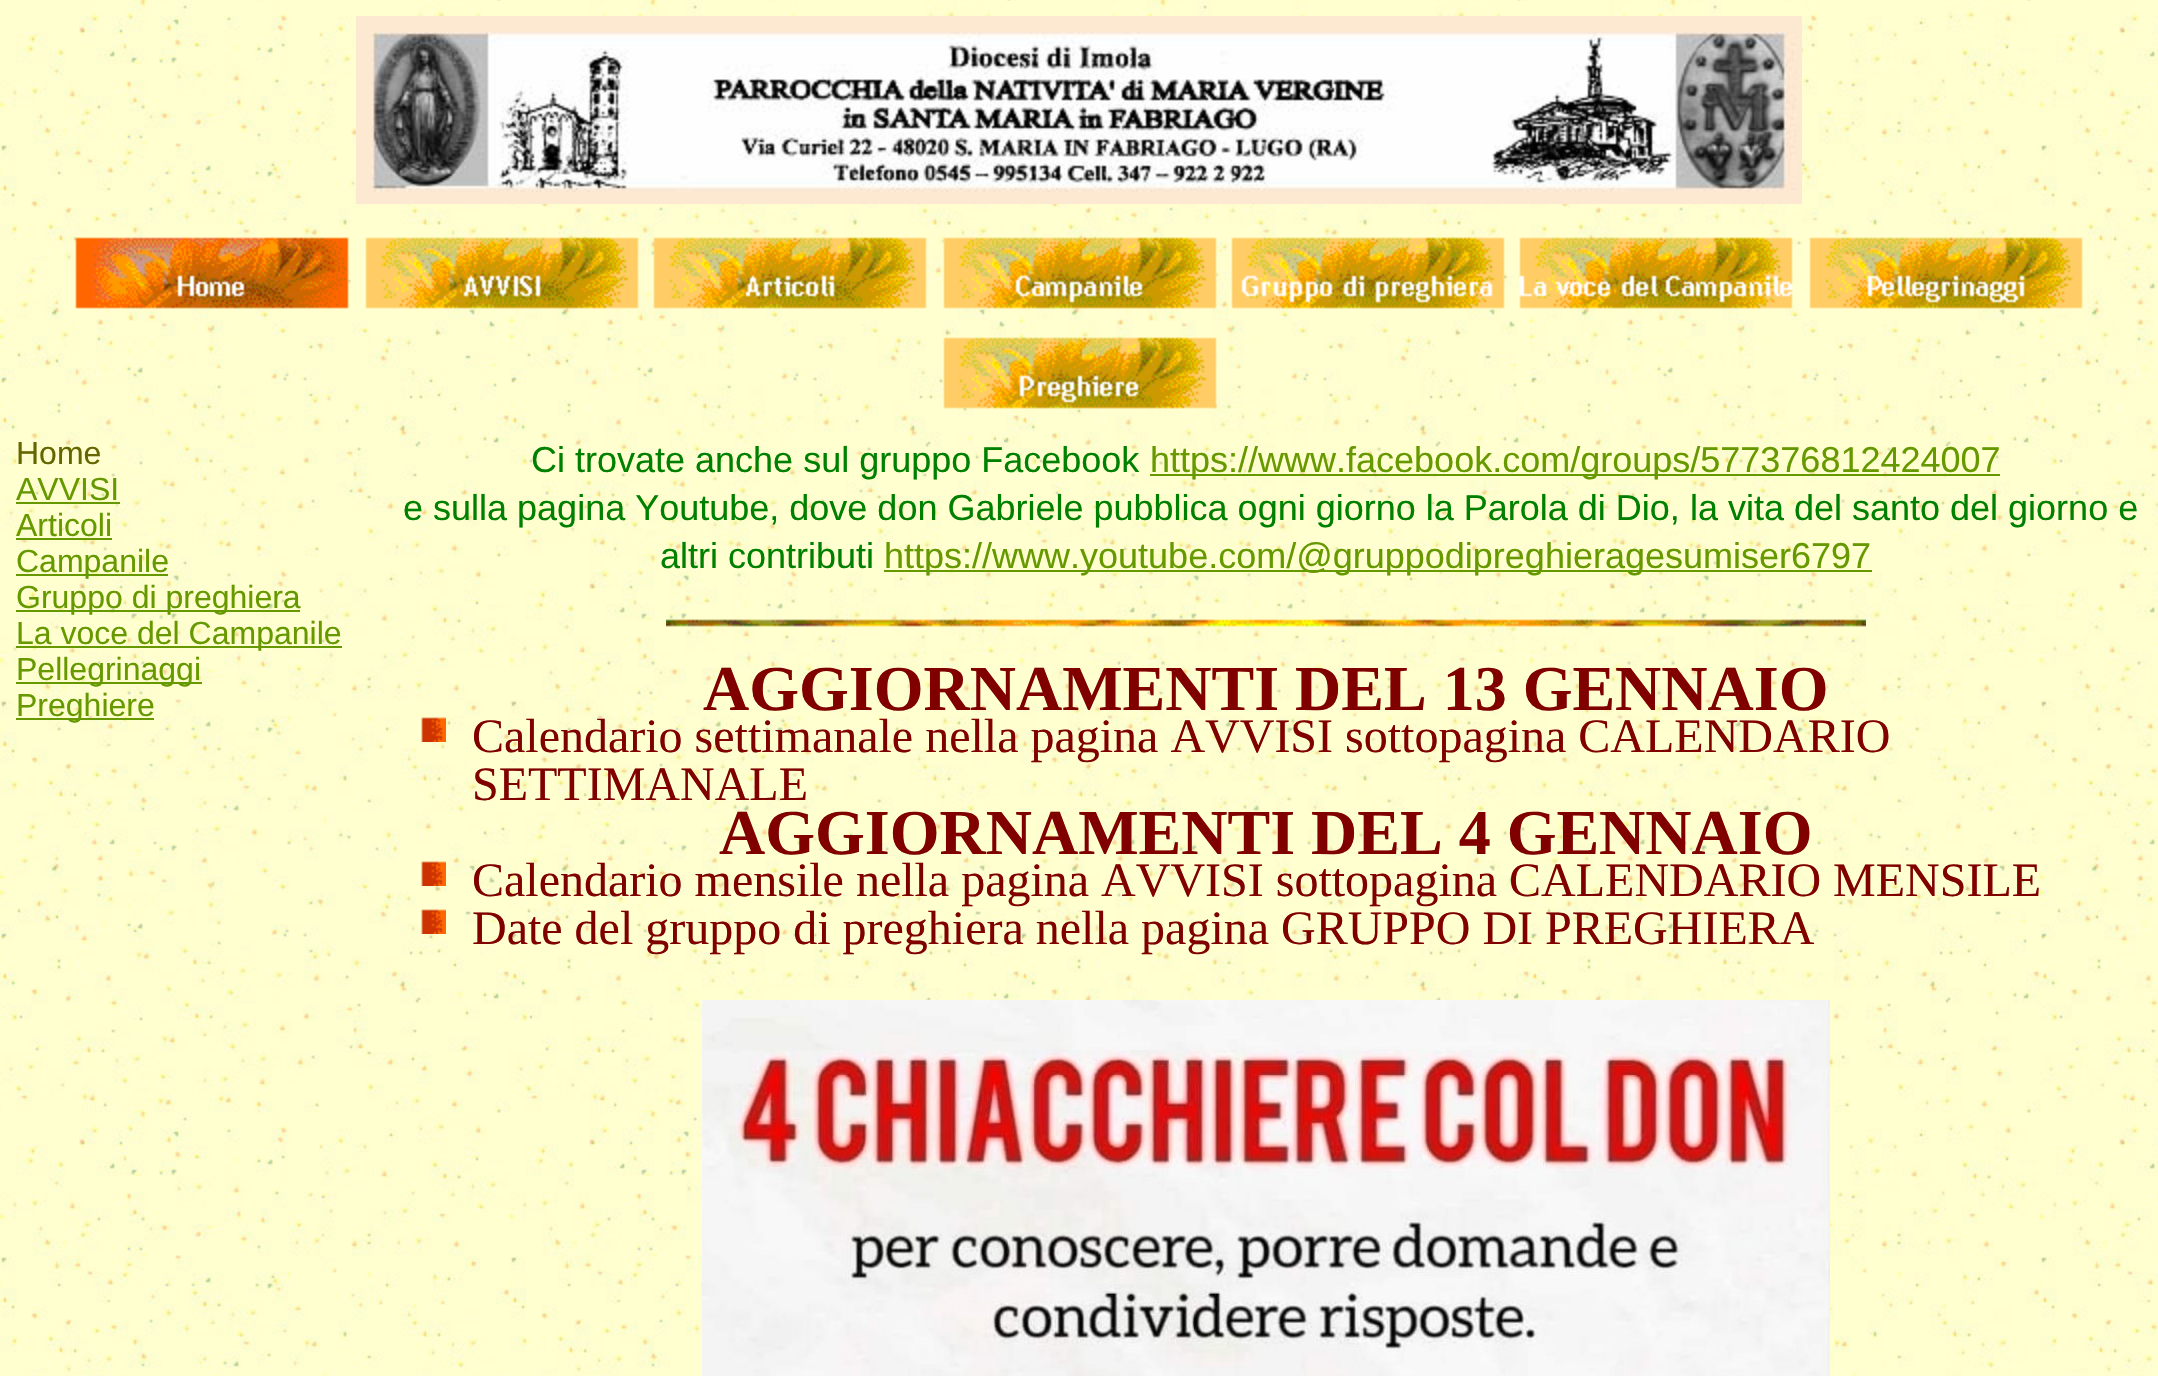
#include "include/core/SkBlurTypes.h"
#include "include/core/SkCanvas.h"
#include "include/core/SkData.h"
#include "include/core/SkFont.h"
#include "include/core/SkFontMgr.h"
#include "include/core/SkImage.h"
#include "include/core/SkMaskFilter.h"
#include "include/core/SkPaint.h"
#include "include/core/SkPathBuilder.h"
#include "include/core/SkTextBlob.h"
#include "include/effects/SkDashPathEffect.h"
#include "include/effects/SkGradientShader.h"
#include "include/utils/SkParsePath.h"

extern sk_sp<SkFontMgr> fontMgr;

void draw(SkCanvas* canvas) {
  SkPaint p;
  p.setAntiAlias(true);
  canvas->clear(SK_ColorWHITE);
  canvas->drawImageRect(SkImages::DeferredFromEncodedData(SkData::MakeFromFileName("images/1.png")), SkRect::MakeLTRB(0, 0, 2158, 1376), SkSamplingOptions());
  canvas->drawImageRect(SkImages::DeferredFromEncodedData(SkData::MakeFromFileName("images/2.png")), SkRect::MakeLTRB(356, 16, 1802, 204), SkSamplingOptions());
  canvas->drawImageRect(SkImages::DeferredFromEncodedData(SkData::MakeFromFileName("images/3.png")), SkRect::MakeLTRB(75, 237, 349, 309), SkSamplingOptions());
  canvas->drawImageRect(SkImages::DeferredFromEncodedData(SkData::MakeFromFileName("images/4.png")), SkRect::MakeLTRB(365, 237, 639, 309), SkSamplingOptions());
  canvas->drawImageRect(SkImages::DeferredFromEncodedData(SkData::MakeFromFileName("images/5.png")), SkRect::MakeLTRB(653, 237, 927, 309), SkSamplingOptions());
  canvas->drawImageRect(SkImages::DeferredFromEncodedData(SkData::MakeFromFileName("images/6.png")), SkRect::MakeLTRB(943, 237, 1217, 309), SkSamplingOptions());
  canvas->drawImageRect(SkImages::DeferredFromEncodedData(SkData::MakeFromFileName("images/7.png")), SkRect::MakeLTRB(1231, 237, 1505, 309), SkSamplingOptions());
  canvas->drawImageRect(SkImages::DeferredFromEncodedData(SkData::MakeFromFileName("images/8.png")), SkRect::MakeLTRB(1519, 237, 1793, 309), SkSamplingOptions());
  canvas->drawImageRect(SkImages::DeferredFromEncodedData(SkData::MakeFromFileName("images/9.png")), SkRect::MakeLTRB(1809, 237, 2083, 309), SkSamplingOptions());
  canvas->drawImageRect(SkImages::DeferredFromEncodedData(SkData::MakeFromFileName("images/10.png")), SkRect::MakeLTRB(943, 337, 1217, 409), SkSamplingOptions());
  p.setColor(SkColorSetRGB(102, 153, 0));
  canvas->drawRect(SkRect::MakeLTRB(16, 502, 120, 504), p);
  canvas->drawRect(SkRect::MakeLTRB(16, 538, 112, 540), p);
  canvas->drawRect(SkRect::MakeLTRB(16, 574, 168, 576), p);
  canvas->drawRect(SkRect::MakeLTRB(16, 610, 300, 612), p);
  canvas->drawRect(SkRect::MakeLTRB(16, 646, 342, 648), p);
  canvas->drawRect(SkRect::MakeLTRB(16, 682, 202, 684), p);
  canvas->drawRect(SkRect::MakeLTRB(16, 718, 154, 720), p);
  canvas->drawRect(SkRect::MakeLTRB(1150, 474, 2000, 476), p);
  canvas->drawRect(SkRect::MakeLTRB(884, 570, 1872, 572), p);
  canvas->drawImageRect(SkImages::DeferredFromEncodedData(SkData::MakeFromFileName("images/11.png")), SkRect::MakeLTRB(666, 619, 1866, 627), SkSamplingOptions());
  canvas->drawImageRect(SkImages::DeferredFromEncodedData(SkData::MakeFromFileName("images/12.png")), SkRect::MakeLTRB(421, 717, 446, 742), SkSamplingOptions());
  canvas->drawImageRect(SkImages::DeferredFromEncodedData(SkData::MakeFromFileName("images/13.png")), SkRect::MakeLTRB(421, 861, 446, 886), SkSamplingOptions());
  canvas->drawImageRect(SkImages::DeferredFromEncodedData(SkData::MakeFromFileName("images/14.png")), SkRect::MakeLTRB(421, 909, 446, 934), SkSamplingOptions());
  canvas->drawImageRect(SkImages::DeferredFromEncodedData(SkData::MakeFromFileName("images/15.png")), SkRect::MakeLTRB(702, 1000, 1830, 1376), SkSamplingOptions());
  SkFont font1(fontMgr->matchFamilyStyle("Liberation Sans", SkFontStyle::Normal()), 32);
  font1.setSubpixel(true);
  p.setColor(SkColorSetRGB(102, 102, 0));
  canvas->drawString("Home", 16, 464, font1, p);
  p.setColor(SkColorSetRGB(102, 153, 0));
  canvas->drawString("AVVISI", 16, 500, font1, p);
  canvas->drawString("Articoli", 16, 536, font1, p);
  canvas->drawString("Campanile", 16, 572, font1, p);
  canvas->drawString("Gruppo di preghiera", 16, 608, font1, p);
  canvas->drawString("La voce del Campanile", 16, 644, font1, p);
  canvas->drawString("Pellegrinaggi", 16, 680, font1, p);
  canvas->drawString("Preghiere", 16, 716, font1, p);
  SkFont font2(fontMgr->matchFamilyStyle("Liberation Sans", SkFontStyle::Normal()), 36);
  font2.setSubpixel(true);
  p.setColor(SkColorSetRGB(0, 128, 0));
  canvas->drawString("Ci trovate anche sul gruppo Facebook", 531, 472, font2, p);
  p.setColor(SkColorSetRGB(102, 153, 0));
  canvas->drawString("https://www.facebook.com/groups/577376812424007", 1150, 472, font2, p);
  p.setColor(SkColorSetRGB(0, 128, 0));
  canvas->drawString("e sulla pagina Youtube, dove don Gabriele pubblica ogni giorno la Parola di Dio, la vita del santo del giorno e", 403, 520, font2, p);
  canvas->drawString("altri contributi", 660, 568, font2, p);
  p.setColor(SkColorSetRGB(102, 153, 0));
  canvas->drawString("https://www.youtube.com/@gruppodipreghieragesumiser6797", 884, 568, font2, p);
  SkFont font3(fontMgr->matchFamilyStyle("Liberation Serif", SkFontStyle::Bold()), 64);
  font3.setSubpixel(true);
  p.setColor(SkColorSetRGB(128, 0, 0));
  canvas->drawString("AGGIORNAMENTI DEL 13 GENNAIO", 703, 710, font3, p);
  SkFont font4(fontMgr->matchFamilyStyle("Liberation Serif", SkFontStyle::Normal()), 48);
  font4.setSubpixel(true);
  canvas->drawString("Calendario settimanale nella pagina AVVISI sottopagina CALENDARIO", 472, 752, font4, p);
  canvas->drawString("SETTIMANALE", 472, 800, font4, p);
  canvas->drawString("AGGIORNAMENTI DEL 4 GENNAIO", 719, 854, font3, p);
  canvas->drawString("Calendario mensile nella pagina AVVISI sottopagina CALENDARIO MENSILE", 472, 896, font4, p);
  canvas->drawString("Date del gruppo di preghiera nella pagina GRUPPO DI PREGHIERA", 472, 944, font4, p);
}
